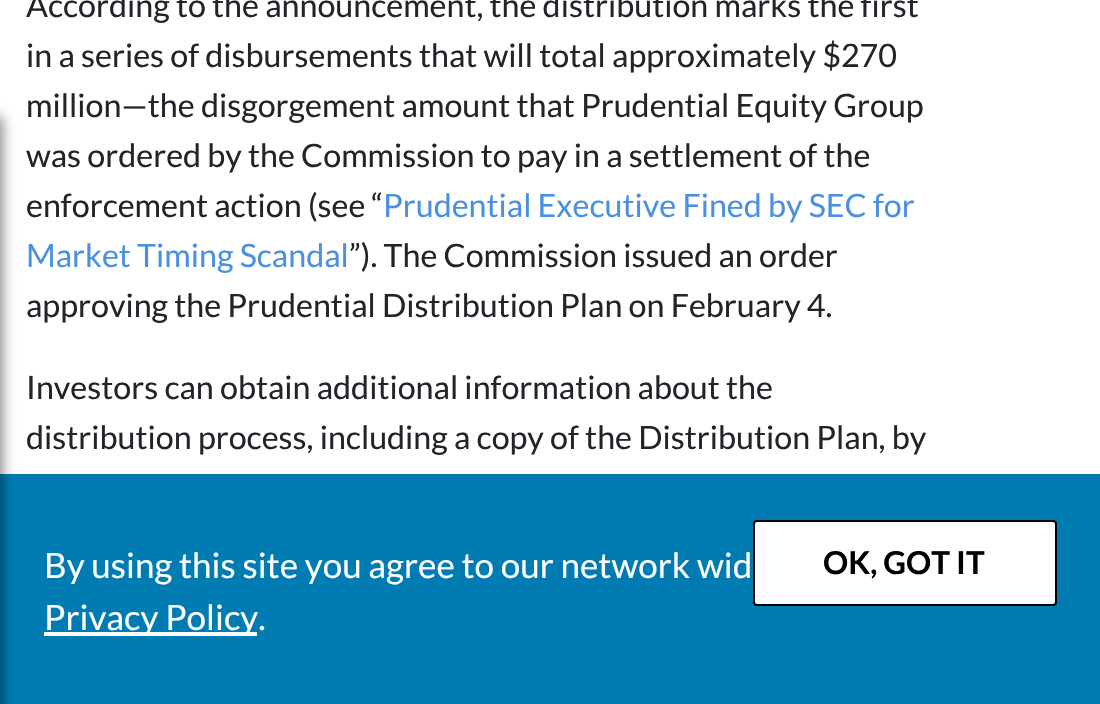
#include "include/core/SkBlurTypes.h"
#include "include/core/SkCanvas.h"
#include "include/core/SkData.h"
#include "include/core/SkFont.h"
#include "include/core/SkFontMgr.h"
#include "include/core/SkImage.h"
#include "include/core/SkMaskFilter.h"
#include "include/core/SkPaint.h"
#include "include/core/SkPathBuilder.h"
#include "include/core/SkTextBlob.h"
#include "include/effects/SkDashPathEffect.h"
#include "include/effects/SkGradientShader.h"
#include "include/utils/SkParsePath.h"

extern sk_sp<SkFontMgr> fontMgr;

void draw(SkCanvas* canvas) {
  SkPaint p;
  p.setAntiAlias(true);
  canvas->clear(SK_ColorWHITE);
  p.setColor(SkColorSetRGB(0, 124, 179));
  canvas->drawRect(SkRect::MakeLTRB(0, 474, 1100, 704), p);
  p.setColor(SkColorSetARGB(128, 0, 0, 0));
  p.setMaskFilter(SkMaskFilter::MakeBlur(kNormal_SkBlurStyle, 7));
  canvas->drawRect(SkRect::MakeLTRB(-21, 117, 2, 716), p);
  p.setMaskFilter(nullptr);
  p.setColor(SK_ColorWHITE);
  canvas->drawRect(SkRect::MakeLTRB(44, 632, 257, 636), p);
  canvas->drawRoundRect(SkRect::MakeLTRB(754, 521, 1056, 605), 3, 3, p);
  p.setStyle(SkPaint::kStroke_Style);
  p.setStrokeWidth(2);
  p.setColor(SK_ColorBLACK);
  canvas->drawRoundRect(SkRect::MakeLTRB(754, 521, 1056, 605), 3, 3, p);
  SkFont font1(fontMgr->matchFamilyStyle("Lato", SkFontStyle::Normal()), 32.25f);
  font1.setSubpixel(true);
  p.setStyle(SkPaint::kFill_Style);
  p.setColor(SkColorSetRGB(33, 37, 41));
  canvas->drawString("According to the announcement, the distribution marks the first", 26, 17, font1, p);
  canvas->drawString("in a series of disbursements that will total approximately $270", 26, 67, font1, p);
  canvas->drawString("million—the disgorgement amount that Prudential Equity Group", 26, 117, font1, p);
  canvas->drawString("was ordered by the Commission to pay in a settlement of the", 26, 167, font1, p);
  canvas->drawString("enforcement action (see “", 26, 217, font1, p);
  p.setColor(SkColorSetRGB(74, 144, 226));
  canvas->drawString("Prudential Executive Fined by SEC for", 383, 217, font1, p);
  canvas->drawString("Market Timing Scandal", 26, 267, font1, p);
  p.setColor(SkColorSetRGB(33, 37, 41));
  canvas->drawString("”). The Commission issued an order", 349, 267, font1, p);
  canvas->drawString("approving the Prudential Distribution Plan on February 4.", 26, 317, font1, p);
  canvas->drawString("Investors can obtain additional information about the", 26, 399, font1, p);
  canvas->drawString("distribution process, including a copy of the Distribution Plan, by", 26, 449, font1, p);
  SkFont font2(fontMgr->matchFamilyStyle("Lato", SkFontStyle::Normal()), 35);
  font2.setSubpixel(true);
  p.setColor(SK_ColorWHITE);
  canvas->drawString("By using this site you agree to our network wid", 44, 578, font2, p);
  canvas->drawString("Privacy Policy.", 44, 630, font2, p);
  SkFont font3(fontMgr->matchFamilyStyle("Lato", SkFontStyle::Bold()), 31.5f);
  font3.setSubpixel(true);
  p.setColor(SK_ColorBLACK);
  canvas->drawString("OK, GOT IT", 823, 574, font3, p);
}
